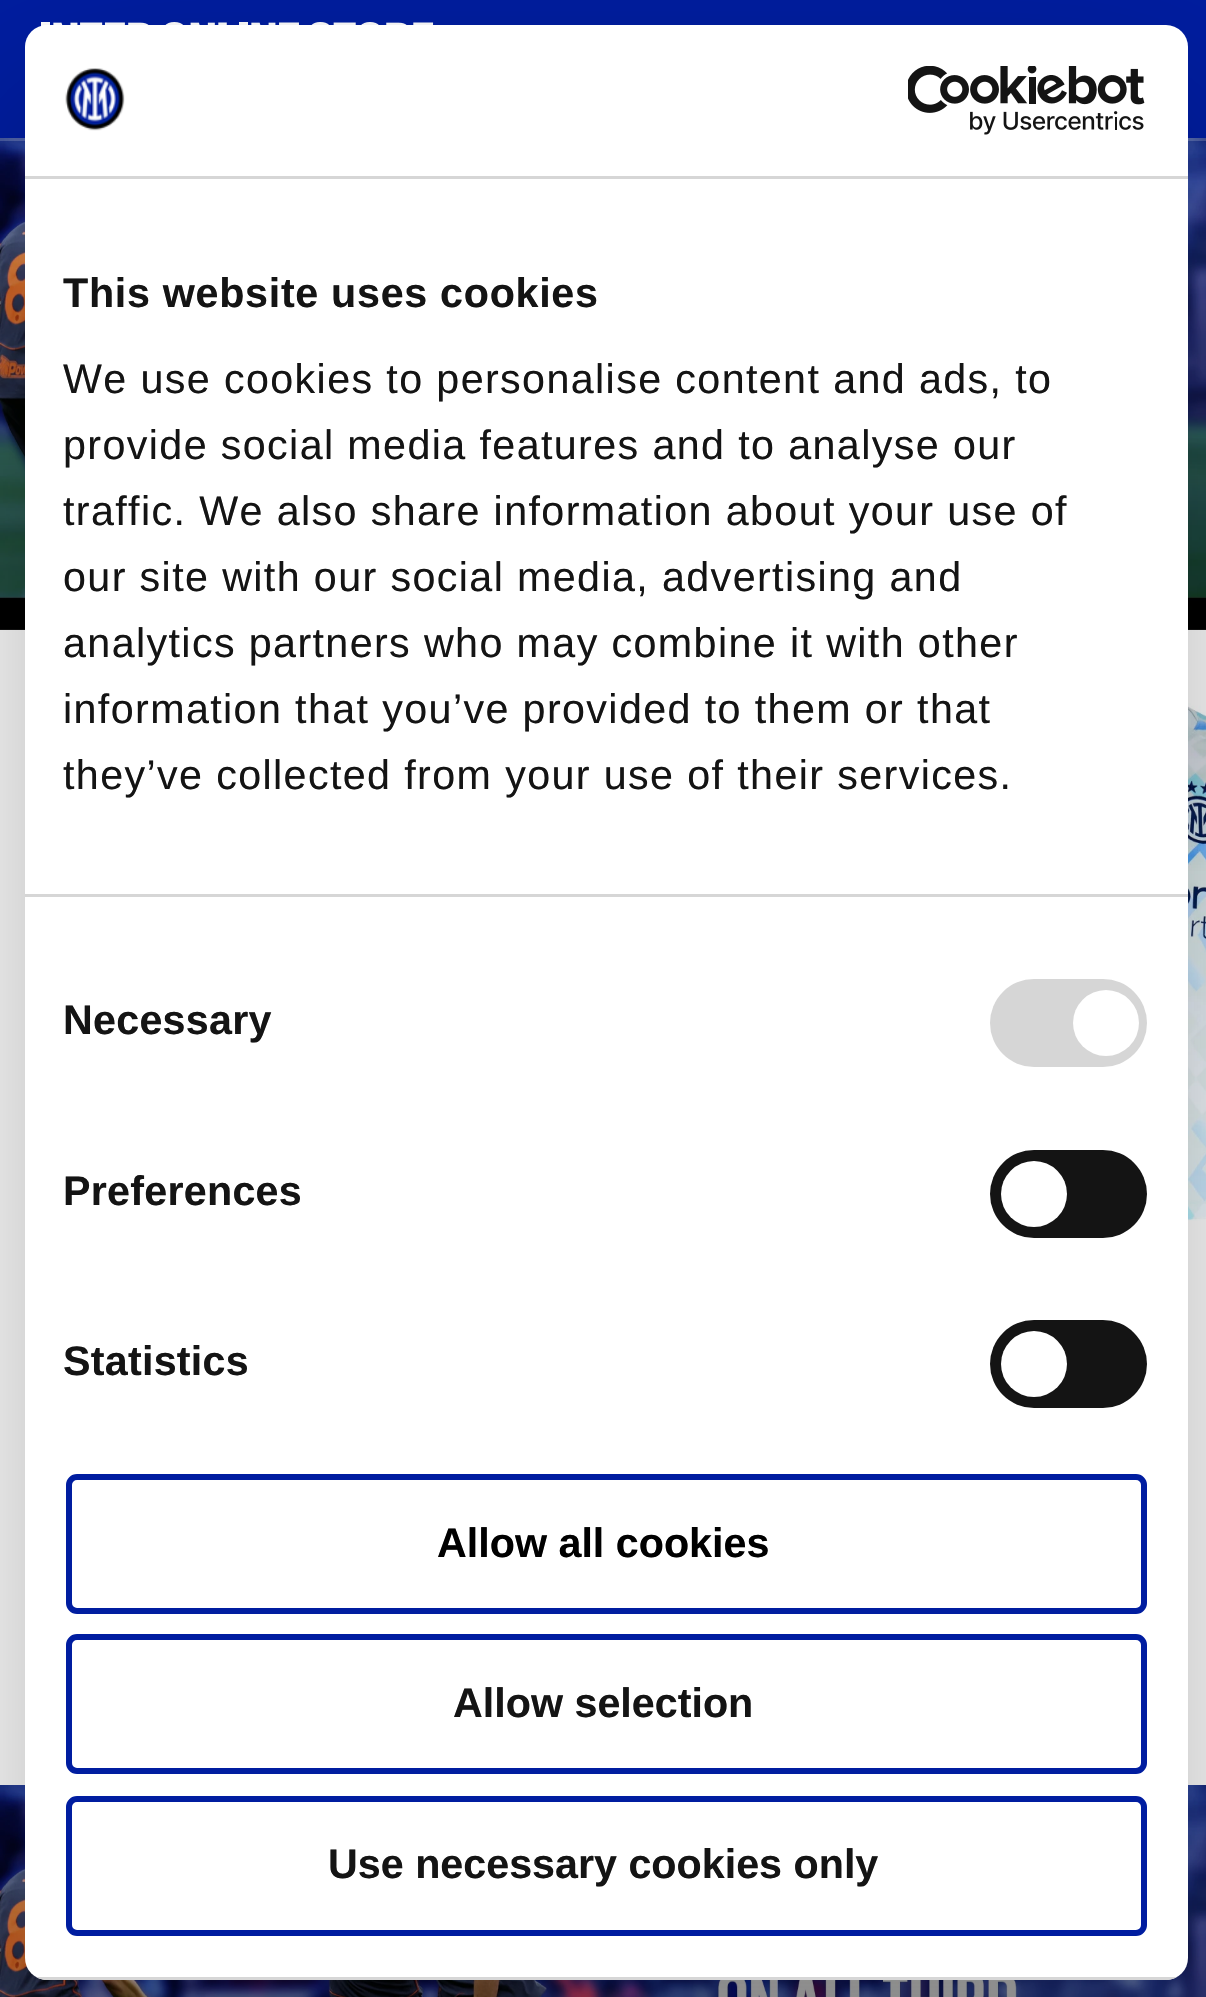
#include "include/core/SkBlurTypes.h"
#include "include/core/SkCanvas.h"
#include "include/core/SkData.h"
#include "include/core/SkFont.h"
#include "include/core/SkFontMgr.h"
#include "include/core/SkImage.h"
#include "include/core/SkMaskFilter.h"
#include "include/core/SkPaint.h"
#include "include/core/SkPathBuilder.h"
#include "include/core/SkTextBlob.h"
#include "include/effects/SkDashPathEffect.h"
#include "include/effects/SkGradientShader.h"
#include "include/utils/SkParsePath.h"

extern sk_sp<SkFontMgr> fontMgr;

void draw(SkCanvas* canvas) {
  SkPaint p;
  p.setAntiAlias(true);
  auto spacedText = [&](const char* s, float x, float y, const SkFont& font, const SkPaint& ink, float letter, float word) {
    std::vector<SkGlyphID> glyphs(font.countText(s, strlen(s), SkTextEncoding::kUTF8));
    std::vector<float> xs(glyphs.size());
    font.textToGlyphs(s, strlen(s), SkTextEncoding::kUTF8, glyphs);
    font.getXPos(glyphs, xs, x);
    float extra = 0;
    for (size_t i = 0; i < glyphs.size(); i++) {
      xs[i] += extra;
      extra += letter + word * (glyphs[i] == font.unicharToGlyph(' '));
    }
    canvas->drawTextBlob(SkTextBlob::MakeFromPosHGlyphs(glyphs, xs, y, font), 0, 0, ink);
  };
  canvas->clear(SK_ColorWHITE);
  canvas->drawImageRect(SkImages::DeferredFromEncodedData(SkData::MakeFromFileName("images/2.png")), SkRect::MakeLTRB(0, 138, 1206, 630), SkSamplingOptions());
  p.setColor(SkColorSetARGB(51, 0, 0, 0));
  p.setMaskFilter(SkMaskFilter::MakeBlur(kNormal_SkBlurStyle, 14));
  canvas->drawRect(SkRect::MakeLTRB(0, 0, 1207, 138), p);
  p.setMaskFilter(nullptr);
  p.setColor(SkColorSetRGB(0, 29, 160));
  canvas->drawRect(SkRect::MakeLTRB(0, 0, 1206, 138), p);
  canvas->drawImageRect(SkImages::DeferredFromEncodedData(SkData::MakeFromFileName("images/1.png")), SkRect::MakeLTRB(41, 22, 434, 26), SkSamplingOptions());
  p.setColor(SkColorSetARGB(51, 255, 255, 255));
  canvas->drawRect(SkRect::MakeLTRB(0, 138, 1206, 141), p);
  {
    const SkColor colors[] = {SkColorSetARGB(102, 0, 0, 0), SkColorSetARGB(0, 0, 0, 0)};
    const float stops[] = {0.3f, 1};
    const SkPoint ends[] = {{604, 630}, {604, 173}};
    p.setShader(SkGradientShader::MakeLinear(ends, colors, stops, 2, SkTileMode::kClamp));
    p.setAlpha(255);
  }
  canvas->drawRect(SkRect::MakeLTRB(0, 190, 1206, 630), p);
  canvas->drawImageRect(SkImages::DeferredFromEncodedData(SkData::MakeFromFileName("images/3.png")), SkRect::MakeLTRB(1188, 698, 1206, 1221), SkSamplingOptions());
  canvas->drawImageRect(SkImages::DeferredFromEncodedData(SkData::MakeFromFileName("images/4.png")), SkRect::MakeLTRB(0, 1785, 1206, 1997), SkSamplingOptions());
  canvas->save();
  canvas->clipPath(SkPathBuilder(SkPathFillType::kEvenOdd).moveTo(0, 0).lineTo(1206, 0).lineTo(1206, 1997).lineTo(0, 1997).close().moveTo(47, 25).lineTo(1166, 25).cubicTo(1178, 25, 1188, 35, 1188, 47).lineTo(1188, 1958).cubicTo(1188, 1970, 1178, 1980, 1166, 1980).lineTo(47, 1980).cubicTo(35, 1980, 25, 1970, 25, 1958).lineTo(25, 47).cubicTo(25, 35, 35, 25, 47, 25).close().detach(), true);
  p.setShader(nullptr);
  p.setColor(SkColorSetARGB(77, 0, 0, 0));
  p.setMaskFilter(SkMaskFilter::MakeBlur(kNormal_SkBlurStyle, 93.5f));
  canvas->drawRoundRect(SkRect::MakeLTRB(25, 113, 1188, 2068), 22, 22, p);
  p.setMaskFilter(nullptr);
  canvas->restore();
  p.setColor(SK_ColorWHITE);
  canvas->drawRoundRect(SkRect::MakeLTRB(25, 25, 1188, 1980), 22, 22, p);
  p.setColor(SkColorSetRGB(214, 214, 214));
  canvas->drawRect(SkRect::MakeLTRB(25, 176, 1188, 179), p);
  canvas->drawImageRect(SkImages::DeferredFromEncodedData(SkData::MakeFromFileName("images/5.png")), SkRect::MakeLTRB(65, 68, 125, 131), SkSamplingOptions());
  canvas->drawImageRect(SkImages::DeferredFromEncodedData(SkData::MakeFromFileName("images/6.png")), SkRect::MakeLTRB(908, 66, 1145, 135), SkSamplingOptions());
  canvas->drawRect(SkRect::MakeLTRB(25, 894, 1188, 897), p);
  canvas->drawRoundRect(SkRect::MakeLTRB(990, 979, 1147, 1067), 44, 44, p);
  p.setColor(SK_ColorWHITE);
  canvas->drawCircle(1106, 1023, 33, p);
  p.setColor(SkColorSetRGB(20, 20, 20));
  canvas->drawRoundRect(SkRect::MakeLTRB(990, 1150, 1147, 1238), 44, 44, p);
  p.setColor(SK_ColorWHITE);
  canvas->drawCircle(1034, 1194, 33, p);
  p.setColor(SkColorSetRGB(20, 20, 20));
  canvas->drawRoundRect(SkRect::MakeLTRB(990, 1320, 1147, 1408), 44, 44, p);
  p.setColor(SK_ColorWHITE);
  canvas->drawCircle(1034, 1364, 33, p);
  canvas->save();
  canvas->clipPath(SkPathBuilder().moveTo(47, 25).lineTo(1166, 25).cubicTo(1178, 25, 1188, 35, 1188, 47).lineTo(1188, 1958).cubicTo(1188, 1970, 1178, 1980, 1166, 1980).lineTo(47, 1980).cubicTo(35, 1980, 25, 1970, 25, 1958).lineTo(25, 47).cubicTo(25, 35, 35, 25, 47, 25).close().detach(), true);
  p.setColor(SkColorSetRGB(214, 214, 214));
  canvas->drawRect(SkRect::MakeLTRB(36, 1977, 1177, 1980), p);
  canvas->restore();
  p.setStyle(SkPaint::kStroke_Style);
  p.setStrokeWidth(6);
  p.setColor(SkColorSetRGB(0, 29, 160));
  canvas->drawRoundRect(SkRect::MakeLTRB(69, 1477, 1144, 1611), 8, 8, p);
  canvas->drawRoundRect(SkRect::MakeLTRB(69, 1637, 1144, 1771), 8, 8, p);
  canvas->drawRoundRect(SkRect::MakeLTRB(69, 1799, 1144, 1933), 8, 8, p);
  SkFont font1(fontMgr->matchFamilyStyle("Liberation Sans", SkFontStyle::Bold()), 41.25f);
  font1.setSubpixel(true);
  p.setStyle(SkPaint::kFill_Style);
  p.setColor(SkColorSetRGB(20, 20, 20));
  spacedText("This website uses cookies", 63, 307, font1, p, 0.7f, 0);
  SkFont font2(fontMgr->matchFamilyStyle("Liberation Sans", SkFontStyle::Normal()), 41.25f);
  font2.setSubpixel(true);
  spacedText("We use cookies to personalise content and ads, to", 63, 393, font2, p, 1.38f, 0);
  spacedText("provide social media features and to analyse our", 63, 459, font2, p, 1.38f, 0);
  spacedText("traffic. We also share information about your use of", 63, 525, font2, p, 1.38f, 0);
  spacedText("our site with our social media, advertising and", 63, 591, font2, p, 1.38f, 0);
  spacedText("analytics partners who may combine it with other", 63, 657, font2, p, 1.38f, 0);
  spacedText("information that you’ve provided to them or that", 63, 723, font2, p, 1.38f, 0);
  spacedText("they’ve collected from your use of their services.", 63, 789, font2, p, 1.38f, 0);
  spacedText("Necessary", 63, 1034, font1, p, 0.25f, 0);
  spacedText("Preferences", 63, 1205, font1, p, 0.25f, 0);
  spacedText("Statistics", 63, 1375, font1, p, 0.25f, 0);
  p.setColor(SK_ColorBLACK);
  canvas->drawString("Allow all cookies", 437, 1557, font1, p);
  p.setColor(SkColorSetRGB(20, 20, 20));
  canvas->drawString("Allow selection", 453, 1717, font1, p);
  canvas->drawString("Use necessary cookies only", 328, 1878, font1, p);
}
